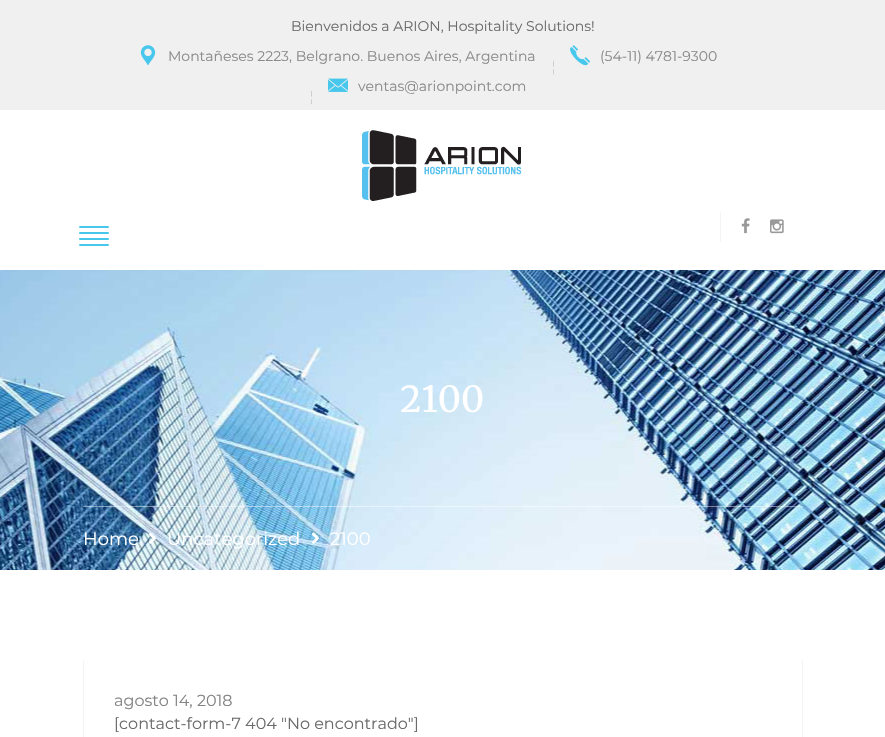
#include "include/core/SkBlurTypes.h"
#include "include/core/SkCanvas.h"
#include "include/core/SkData.h"
#include "include/core/SkFont.h"
#include "include/core/SkFontMgr.h"
#include "include/core/SkImage.h"
#include "include/core/SkMaskFilter.h"
#include "include/core/SkPaint.h"
#include "include/core/SkPathBuilder.h"
#include "include/core/SkTextBlob.h"
#include "include/effects/SkDashPathEffect.h"
#include "include/effects/SkGradientShader.h"
#include "include/utils/SkParsePath.h"

extern sk_sp<SkFontMgr> fontMgr;

void draw(SkCanvas* canvas) {
  SkPaint p;
  p.setAntiAlias(true);
  canvas->clear(SK_ColorWHITE);
  p.setColor(SkColorSetRGB(240, 240, 240));
  canvas->drawRect(SkRect::MakeLTRB(0, 0, 885, 110), p);
  canvas->drawImageRect(SkImages::DeferredFromEncodedData(SkData::MakeFromFileName("images/1.png")), SkRect::MakeLTRB(140, 45, 156, 66), SkSamplingOptions());
  canvas->drawImageRect(SkImages::DeferredFromEncodedData(SkData::MakeFromFileName("images/2.png")), SkRect::MakeLTRB(570, 45, 590, 66), SkSamplingOptions());
  canvas->drawImageRect(SkImages::DeferredFromEncodedData(SkData::MakeFromFileName("images/3.png")), SkRect::MakeLTRB(553, 60, 554, 75), SkSamplingOptions());
  canvas->drawImageRect(SkImages::DeferredFromEncodedData(SkData::MakeFromFileName("images/4.png")), SkRect::MakeLTRB(328, 78, 348, 92), SkSamplingOptions());
  canvas->drawImageRect(SkImages::DeferredFromEncodedData(SkData::MakeFromFileName("images/3.png")), SkRect::MakeLTRB(311, 90, 312, 105), SkSamplingOptions());
  canvas->drawImageRect(SkImages::DeferredFromEncodedData(SkData::MakeFromFileName("images/5.png")), SkRect::MakeLTRB(362, 130, 522, 201), SkSamplingOptions());
  p.setColor(SkColorSetRGB(72, 199, 236));
  canvas->drawRoundRect(SkRect::MakeLTRB(79, 226, 109, 228), 1, 1, p);
  canvas->drawRoundRect(SkRect::MakeLTRB(79, 232, 109, 234), 1, 1, p);
  canvas->drawRoundRect(SkRect::MakeLTRB(79, 238, 109, 240), 1, 1, p);
  canvas->drawRoundRect(SkRect::MakeLTRB(79, 244, 109, 246), 1, 1, p);
  p.setColor(SkColorSetRGB(244, 244, 244));
  canvas->drawRect(SkRect::MakeLTRB(720, 212, 721, 242), p);
  canvas->drawImageRect(SkImages::DeferredFromEncodedData(SkData::MakeFromFileName("images/6.png")), SkRect::MakeLTRB(741, 218, 750, 234), SkSamplingOptions());
  canvas->drawImageRect(SkImages::DeferredFromEncodedData(SkData::MakeFromFileName("images/7.png")), SkRect::MakeLTRB(770, 219, 784, 234), SkSamplingOptions());
  canvas->drawImageRect(SkImages::DeferredFromEncodedData(SkData::MakeFromFileName("images/8.png")), SkRect::MakeLTRB(0, 270, 885, 570), SkSamplingOptions());
  p.setColor(SkColorSetARGB(112, 255, 255, 255));
  canvas->drawRect(SkRect::MakeLTRB(83, 506, 803, 507), p);
  canvas->drawImageRect(SkImages::DeferredFromEncodedData(SkData::MakeFromFileName("images/9.png")), SkRect::MakeLTRB(149, 532, 156, 544), SkSamplingOptions());
  canvas->drawImageRect(SkImages::DeferredFromEncodedData(SkData::MakeFromFileName("images/10.png")), SkRect::MakeLTRB(311, 532, 320, 544), SkSamplingOptions());
  p.setColor(SkColorSetRGB(244, 244, 244));
  canvas->drawRect(SkRect::MakeLTRB(802, 660, 803, 737), p);
  canvas->drawRect(SkRect::MakeLTRB(83, 660, 84, 737), p);
  SkFont font1(fontMgr->matchFamilyStyle("Montserrat", SkFontStyle::Normal()), 14);
  font1.setSubpixel(true);
  p.setColor(SkColorSetRGB(107, 107, 107));
  canvas->drawString("Bienvenidos a ARION, Hospitality Solutions!", 291, 31, font1, p);
  p.setColor(SkColorSetRGB(138, 138, 138));
  canvas->drawString("Montañeses 2223, Belgrano. Buenos Aires, Argentina", 168, 61, font1, p);
  canvas->drawString("(54-11) 4781-9300", 600, 61, font1, p);
  canvas->drawString("ventas@arionpoint.com", 358, 91, font1, p);
  SkFont font2(fontMgr->matchFamilyStyle("Merriweather", SkFontStyle::Normal()), 36);
  font2.setSubpixel(true);
  p.setColor(SK_ColorWHITE);
  canvas->drawString("2100", 400, 412, font2, p);
  SkFont font3(fontMgr->matchFamilyStyle("Montserrat", SkFontStyle::Normal()), 18);
  font3.setSubpixel(true);
  canvas->drawString("Home", 83, 545, font3, p);
  canvas->drawString("Uncategorized", 167, 545, font3, p);
  canvas->drawString("2100", 330, 545, font3, p);
  SkFont font4(fontMgr->matchFamilyStyle("Montserrat", SkFontStyle::Normal()), 16);
  font4.setSubpixel(true);
  p.setColor(SkColorSetRGB(132, 132, 132));
  canvas->drawString("agosto 14, 2018", 114, 706, font4, p);
  p.setColor(SkColorSetRGB(107, 107, 107));
  canvas->drawString("[contact-form-7 404 \"No encontrado\"]", 114, 729, font4, p);
}
